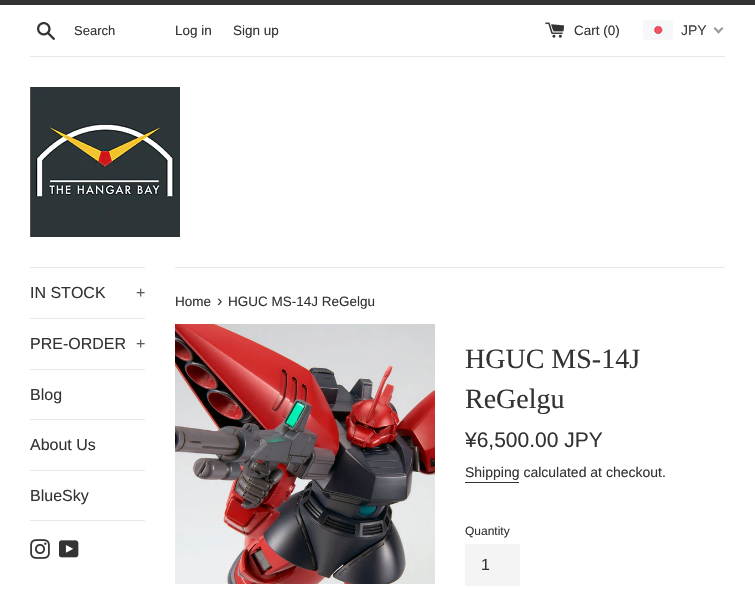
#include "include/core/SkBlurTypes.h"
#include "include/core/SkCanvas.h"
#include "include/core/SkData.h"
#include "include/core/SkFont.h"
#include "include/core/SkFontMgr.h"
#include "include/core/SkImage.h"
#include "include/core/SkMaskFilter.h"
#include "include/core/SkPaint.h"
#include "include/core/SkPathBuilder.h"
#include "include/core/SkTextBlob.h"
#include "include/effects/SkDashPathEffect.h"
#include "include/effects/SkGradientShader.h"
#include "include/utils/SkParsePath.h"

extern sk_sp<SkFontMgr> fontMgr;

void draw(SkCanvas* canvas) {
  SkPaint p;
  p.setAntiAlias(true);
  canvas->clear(SK_ColorWHITE);
  p.setColor(SkColorSetRGB(51, 51, 51));
  canvas->drawRect(SkRect::MakeLTRB(0, 0, 755, 5), p);
  canvas->drawImageRect(SkImages::DeferredFromEncodedData(SkData::MakeFromFileName("images/1.png")), SkRect::MakeLTRB(37, 22, 55, 40), SkSamplingOptions());
  canvas->drawImageRect(SkImages::DeferredFromEncodedData(SkData::MakeFromFileName("images/2.png")), SkRect::MakeLTRB(545, 22, 565, 38), SkSamplingOptions());
  canvas->drawImageRect(SkImages::DeferredFromEncodedData(SkData::MakeFromFileName("images/3.png")), SkRect::MakeLTRB(643, 20, 673, 40), SkSamplingOptions());
  p.setColor(SkColorSetRGB(153, 153, 153));
  canvas->drawPath(SkPathBuilder().moveTo(722, 27).lineTo(723.5f, 28.5f).lineTo(718.5f, 33.5f).lineTo(717, 32).close().detach(), p);
  canvas->drawPath(SkPathBuilder().moveTo(715, 27).lineTo(720, 32).lineTo(718.5f, 33.5f).lineTo(713.5f, 28.5f).close().detach(), p);
  p.setColor(SkColorSetRGB(232, 232, 232));
  canvas->drawRect(SkRect::MakeLTRB(30, 56, 725, 57), p);
  canvas->drawImageRect(SkImages::DeferredFromEncodedData(SkData::MakeFromFileName("images/4.png")), SkRect::MakeLTRB(30, 87, 180, 237), SkSamplingOptions());
  canvas->drawRect(SkRect::MakeLTRB(30, 267, 145, 268), p);
  canvas->drawRect(SkRect::MakeLTRB(30, 318, 145, 319), p);
  canvas->drawRect(SkRect::MakeLTRB(30, 369, 145, 370), p);
  canvas->drawRect(SkRect::MakeLTRB(30, 419, 145, 420), p);
  canvas->drawRect(SkRect::MakeLTRB(30, 470, 145, 471), p);
  canvas->drawRect(SkRect::MakeLTRB(30, 520, 145, 521), p);
  canvas->drawImageRect(SkImages::DeferredFromEncodedData(SkData::MakeFromFileName("images/5.png")), SkRect::MakeLTRB(30, 539, 50, 559), SkSamplingOptions());
  canvas->drawImageRect(SkImages::DeferredFromEncodedData(SkData::MakeFromFileName("images/6.png")), SkRect::MakeLTRB(59, 540, 79, 558), SkSamplingOptions());
  canvas->drawRect(SkRect::MakeLTRB(175, 267, 725, 268), p);
  canvas->drawImageRect(SkImages::DeferredFromEncodedData(SkData::MakeFromFileName("images/7.png")), SkRect::MakeLTRB(175, 324, 435, 584), SkSamplingOptions());
  p.setColor(SkColorSetRGB(51, 51, 51));
  canvas->drawRect(SkRect::MakeLTRB(465, 482, 519, 483), p);
  p.setColor(SkColorSetRGB(244, 244, 244));
  canvas->drawRect(SkRect::MakeLTRB(465, 544, 520, 586), p);
  SkFont font1(fontMgr->matchFamilyStyle("Liberation Sans", SkFontStyle::Normal()), 13);
  font1.setSubpixel(true);
  p.setColor(SkColorSetRGB(51, 51, 51));
  canvas->drawString("Search", 74, 35, font1, p);
  SkFont font2(fontMgr->matchFamilyStyle("Liberation Sans", SkFontStyle::Normal()), 13.5f);
  font2.setSubpixel(true);
  canvas->drawString("Log in", 175, 35, font2, p);
  canvas->drawString("Sign up", 233, 35, font2, p);
  canvas->drawString("Cart (0)", 574, 35, font2, p);
  SkFont font3(fontMgr->matchFamilyStyle("Liberation Sans", SkFontStyle::Normal()), 14);
  font3.setSubpixel(true);
  p.setColor(SkColorSetRGB(64, 63, 63));
  canvas->drawString("JPY", 681, 35, font3, p);
  SkFont font4(fontMgr->matchFamilyStyle("Liberation Sans", SkFontStyle::Normal()), 16);
  font4.setSubpixel(true);
  p.setColor(SkColorSetRGB(51, 51, 51));
  canvas->drawString("IN STOCK", 30, 298, font4, p);
  p.setColor(SkColorSetRGB(92, 92, 92));
  canvas->drawString("+", 136, 298, font4, p);
  p.setColor(SkColorSetRGB(51, 51, 51));
  canvas->drawString("PRE-ORDER", 30, 349, font4, p);
  p.setColor(SkColorSetRGB(92, 92, 92));
  canvas->drawString("+", 136, 349, font4, p);
  p.setColor(SkColorSetRGB(51, 51, 51));
  canvas->drawString("Blog", 30, 400, font4, p);
  canvas->drawString("About Us", 30, 450, font4, p);
  canvas->drawString("BlueSky", 30, 501, font4, p);
  canvas->drawString("Home", 175, 306, font2, p);
  canvas->drawString("›", 217, 306, font4, p);
  canvas->drawString("HGUC MS-14J ReGelgu", 228, 306, font2, p);
  SkFont font5(fontMgr->matchFamilyStyle("Liberation Serif", SkFontStyle::Normal()), 28);
  font5.setSubpixel(true);
  canvas->drawString("HGUC MS-14J", 465, 368, font5, p);
  canvas->drawString("ReGelgu", 465, 408, font5, p);
  SkFont font6(fontMgr->matchFamilyStyle("Liberation Sans", SkFontStyle::Normal()), 21);
  font6.setSubpixel(true);
  canvas->drawString("¥6,500.00 JPY", 465, 447, font6, p);
  canvas->drawString("Shipping calculated at checkout.", 465, 477, font3, p);
  SkFont font7(fontMgr->matchFamilyStyle("Liberation Sans", SkFontStyle::Normal()), 12);
  font7.setSubpixel(true);
  canvas->drawString("Quantity", 465, 535, font7, p);
  canvas->drawString("1", 481, 570, font4, p);
}
